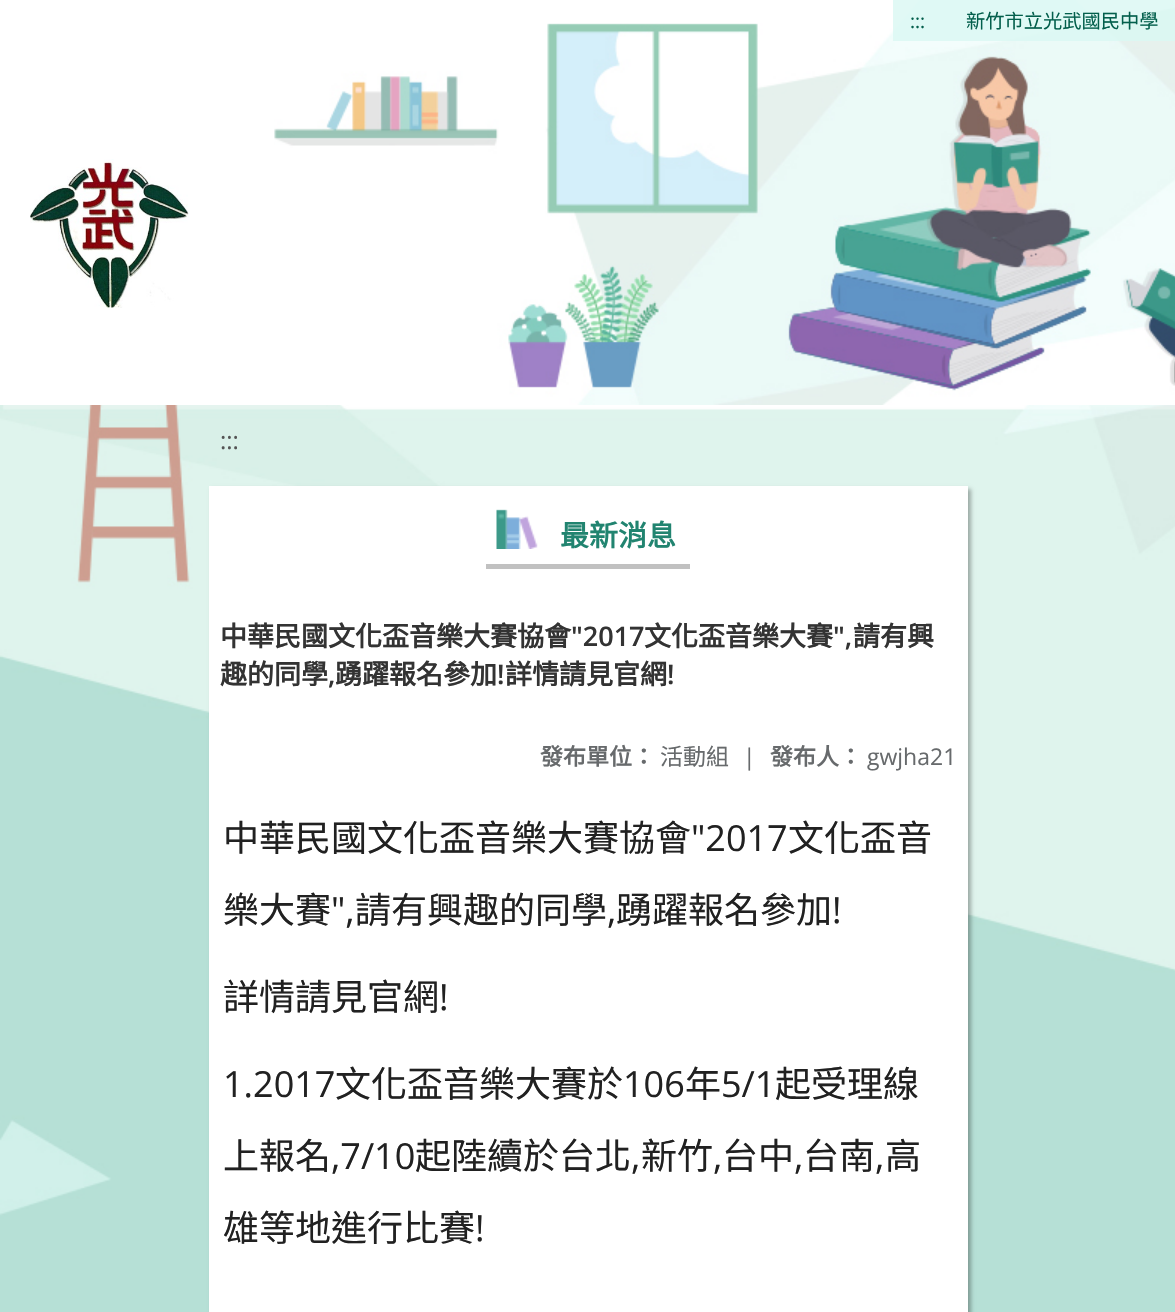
#include "include/core/SkBlurTypes.h"
#include "include/core/SkCanvas.h"
#include "include/core/SkData.h"
#include "include/core/SkFont.h"
#include "include/core/SkFontMgr.h"
#include "include/core/SkImage.h"
#include "include/core/SkMaskFilter.h"
#include "include/core/SkPaint.h"
#include "include/core/SkPathBuilder.h"
#include "include/core/SkTextBlob.h"
#include "include/effects/SkDashPathEffect.h"
#include "include/effects/SkGradientShader.h"
#include "include/utils/SkParsePath.h"

extern sk_sp<SkFontMgr> fontMgr;

void draw(SkCanvas* canvas) {
  SkPaint p;
  p.setAntiAlias(true);
  canvas->clear(SK_ColorWHITE);
  canvas->drawImageRect(SkImages::DeferredFromEncodedData(SkData::MakeFromFileName("images/1.png")), SkRect::MakeLTRB(0, 405, 1175, 1312), SkSamplingOptions());
  canvas->drawImageRect(SkImages::DeferredFromEncodedData(SkData::MakeFromFileName("images/2.png")), SkRect::MakeLTRB(274, 0, 1175, 405), SkSamplingOptions());
  canvas->drawImageRect(SkImages::DeferredFromEncodedData(SkData::MakeFromFileName("images/3.png")), SkRect::MakeLTRB(30, 159, 189, 308), SkSamplingOptions());
  p.setColor(SkColorSetARGB(204, 218, 247, 242));
  canvas->drawRect(SkRect::MakeLTRB(893, 0, 1175, 41), p);
  p.setColor(SkColorSetARGB(77, 0, 0, 0));
  p.setMaskFilter(SkMaskFilter::MakeBlur(kNormal_SkBlurStyle, 2));
  canvas->drawRect(SkRect::MakeLTRB(212, 489, 971, 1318), p);
  p.setMaskFilter(nullptr);
  p.setColor(SK_ColorWHITE);
  canvas->drawRect(SkRect::MakeLTRB(209, 486, 968, 1312), p);
  p.setColor(SkColorSetRGB(193, 193, 193));
  canvas->drawRect(SkRect::MakeLTRB(486, 564, 690, 569), p);
  canvas->drawImageRect(SkImages::DeferredFromEncodedData(SkData::MakeFromFileName("images/4.png")), SkRect::MakeLTRB(496, 509, 538, 549), SkSamplingOptions());
  SkFont font1(fontMgr->matchFamilyStyle("Open Sans", SkFontStyle::Normal()), 19.25f);
  font1.setSubpixel(true);
  p.setColor(SkColorSetRGB(3, 95, 76));
  canvas->drawString(":::", 910, 28, font1, p);
  SkFont font2(fontMgr->matchFamilyStyle("Noto Sans CJK TC", SkFontStyle::Normal()), 19.25f);
  font2.setSubpixel(true);
  canvas->drawString("新竹市立光武國民中學", 966, 28, font2, p);
  SkFont font3(fontMgr->matchFamilyStyle("Open Sans", SkFontStyle::Normal()), 24);
  font3.setSubpixel(true);
  p.setColor(SkColorSetRGB(84, 84, 84));
  canvas->drawString(":::", 220, 449, font3, p);
  SkFont font4(fontMgr->matchFamilyStyle("Noto Sans CJK TC", SkFontStyle::Bold()), 29);
  font4.setSubpixel(true);
  p.setColor(SkColorSetRGB(33, 132, 112));
  canvas->drawString("最新消息", 560, 546, font4, p);
  SkFont font5(fontMgr->matchFamilyStyle("Noto Sans CJK TC", SkFontStyle::Bold()), 27);
  font5.setSubpixel(true);
  p.setColor(SkColorSetRGB(51, 51, 51));
  canvas->drawString("中華民國文化盃音樂大賽協會", 220, 646, font5, p);
  SkFont font6(fontMgr->matchFamilyStyle("Open Sans", SkFontStyle(600, SkFontStyle::kNormal_Width, SkFontStyle::kUpright_Slant)), 27);
  font6.setSubpixel(true);
  canvas->drawString("\"2017", 571, 646, font6, p);
  canvas->drawString("文化盃音樂大賽", 644, 646, font5, p);
  canvas->drawString("\",", 833, 646, font6, p);
  canvas->drawString("請有興", 853, 646, font5, p);
  canvas->drawString("趣的同學", 220, 684, font5, p);
  canvas->drawString(",", 328, 684, font6, p);
  canvas->drawString("踴躍報名參加", 335, 684, font5, p);
  canvas->drawString("!", 497, 684, font6, p);
  canvas->drawString("詳情請見官網", 505, 684, font5, p);
  canvas->drawString("!", 667, 684, font6, p);
  SkFont font7(fontMgr->matchFamilyStyle("Noto Sans CJK TC", SkFontStyle::Bold()), 23);
  font7.setSubpixel(true);
  p.setColor(SkColorSetRGB(103, 106, 108));
  canvas->drawString("發布單位：", 540, 765, font7, p);
  SkFont font8(fontMgr->matchFamilyStyle("Noto Sans CJK TC", SkFontStyle::Normal()), 23);
  font8.setSubpixel(true);
  canvas->drawString("活動組", 660, 765, font8, p);
  SkFont font9(fontMgr->matchFamilyStyle("Open Sans", SkFontStyle::Normal()), 23);
  font9.setSubpixel(true);
  canvas->drawString("|", 743, 765, font9, p);
  canvas->drawString("發布人：", 770, 765, font7, p);
  canvas->drawString("gwjha21", 867, 765, font9, p);
  SkFont font10(fontMgr->matchFamilyStyle("Noto Sans CJK TC", SkFontStyle::Normal()), 36);
  font10.setSubpixel(true);
  p.setColor(SkColorSetRGB(33, 33, 33));
  canvas->drawString("中華民國文化盃音樂大賽協會", 223, 851, font10, p);
  SkFont font11(fontMgr->matchFamilyStyle("Open Sans", SkFontStyle::Normal()), 36);
  font11.setSubpixel(true);
  canvas->drawString("\"2017", 691, 851, font11, p);
  canvas->drawString("文化盃音", 788, 851, font10, p);
  canvas->drawString("樂大賽", 223, 923, font10, p);
  canvas->drawString("\",", 331, 923, font11, p);
  canvas->drawString("請有興趣的同學", 355, 923, font10, p);
  canvas->drawString(",", 607, 923, font11, p);
  canvas->drawString("踴躍報名參加", 616, 923, font10, p);
  canvas->drawString("!", 832, 923, font11, p);
  canvas->drawString("詳情請見官網", 223, 1010, font10, p);
  canvas->drawString("!", 439, 1010, font11, p);
  canvas->drawString("1.2017", 223, 1097, font11, p);
  canvas->drawString("文化盃音樂大賽於", 335, 1097, font10, p);
  canvas->drawString("106", 623, 1097, font11, p);
  canvas->drawString("年", 685, 1097, font10, p);
  canvas->drawString("5/1", 721, 1097, font11, p);
  canvas->drawString("起受理線", 775, 1097, font10, p);
  canvas->drawString("上報名", 223, 1169, font10, p);
  canvas->drawString(",7/10", 331, 1169, font11, p);
  canvas->drawString("起陸續於台北", 415, 1169, font10, p);
  canvas->drawString(",", 631, 1169, font11, p);
  canvas->drawString("新竹", 641, 1169, font10, p);
  canvas->drawString(",", 713, 1169, font11, p);
  canvas->drawString("台中", 722, 1169, font10, p);
  canvas->drawString(",", 794, 1169, font11, p);
  canvas->drawString("台南", 803, 1169, font10, p);
  canvas->drawString(",", 875, 1169, font11, p);
  canvas->drawString("高", 885, 1169, font10, p);
  canvas->drawString("雄等地進行比賽", 223, 1241, font10, p);
  canvas->drawString("!", 475, 1241, font11, p);
}
